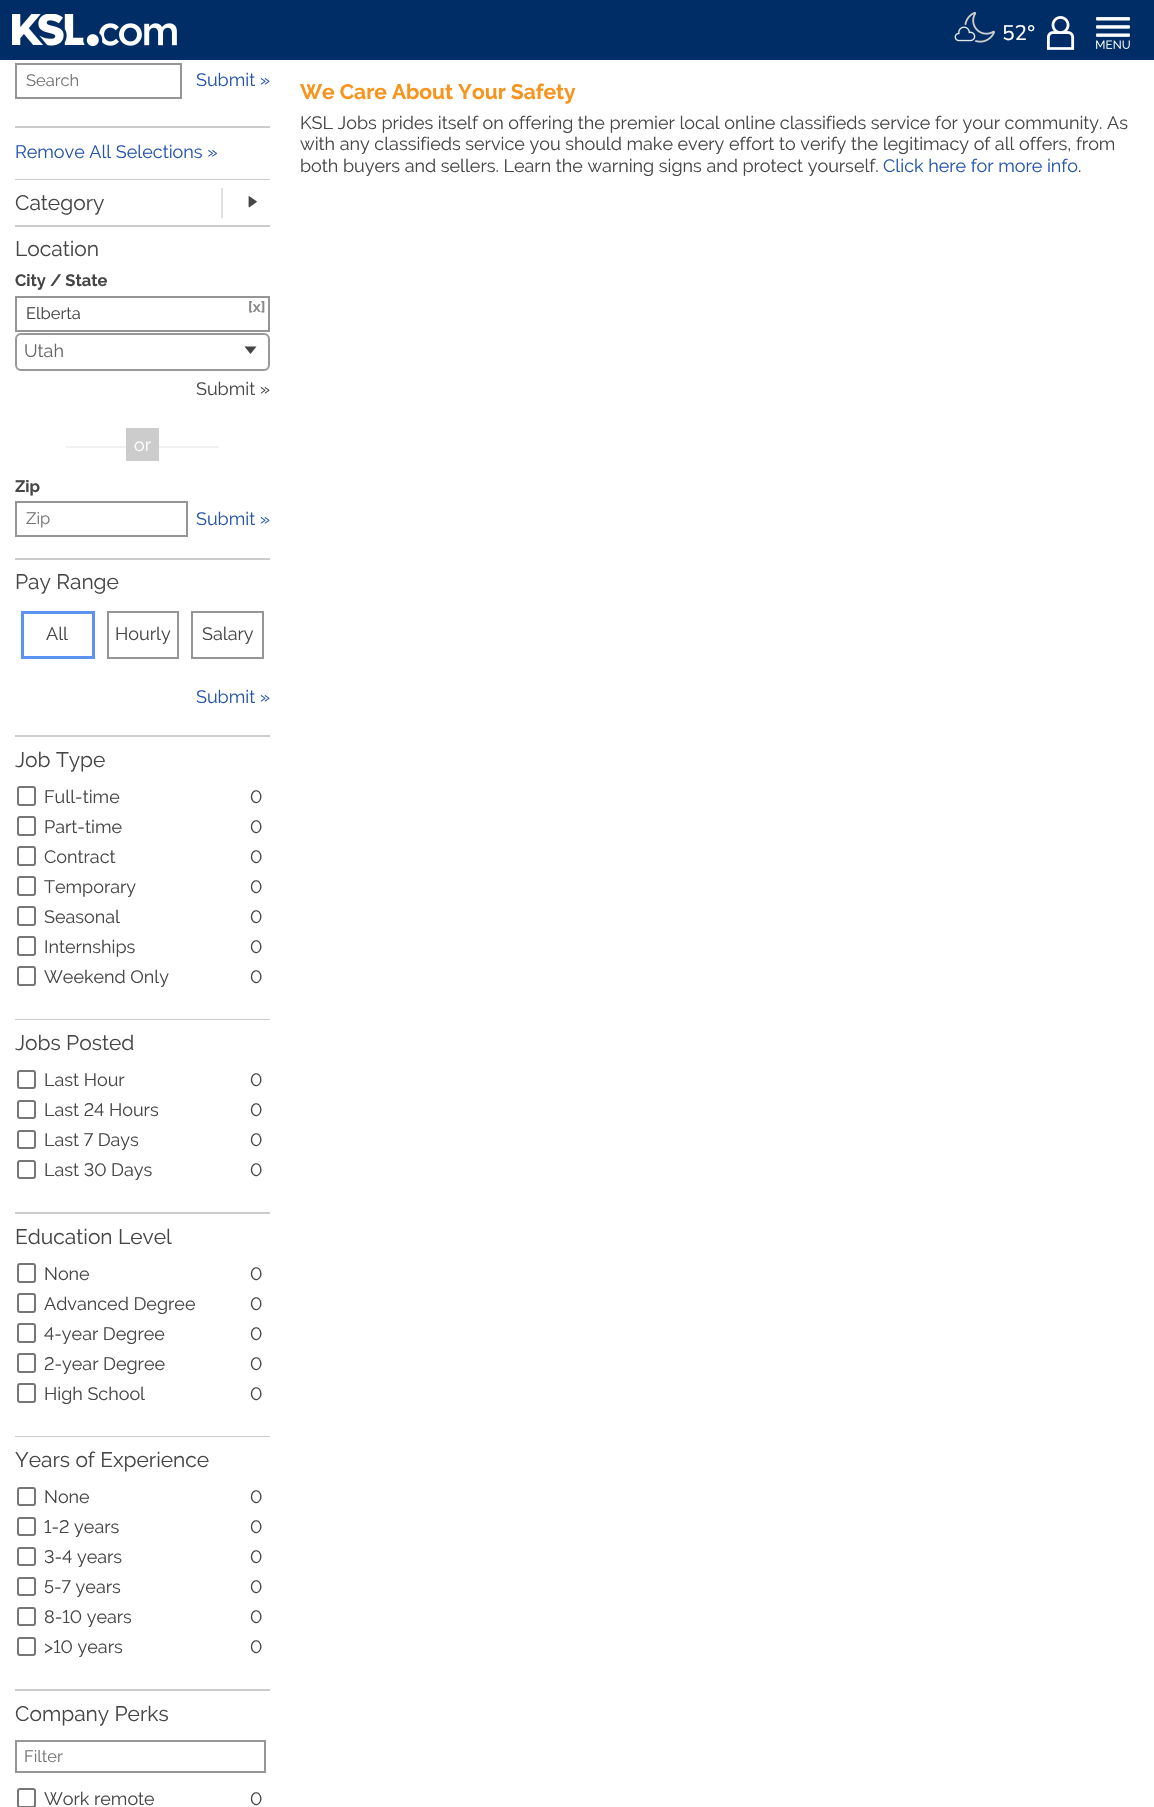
#include "include/core/SkBlurTypes.h"
#include "include/core/SkCanvas.h"
#include "include/core/SkData.h"
#include "include/core/SkFont.h"
#include "include/core/SkFontMgr.h"
#include "include/core/SkImage.h"
#include "include/core/SkMaskFilter.h"
#include "include/core/SkPaint.h"
#include "include/core/SkPathBuilder.h"
#include "include/core/SkTextBlob.h"
#include "include/effects/SkDashPathEffect.h"
#include "include/effects/SkGradientShader.h"
#include "include/utils/SkParsePath.h"

extern sk_sp<SkFontMgr> fontMgr;

void draw(SkCanvas* canvas) {
  SkPaint p;
  p.setAntiAlias(true);
  canvas->clear(SK_ColorWHITE);
  p.setColor(SkColorSetRGB(0, 45, 101));
  canvas->drawRect(SkRect::MakeLTRB(0, 0, 1154, 60), p);
  canvas->drawImageRect(SkImages::DeferredFromEncodedData(SkData::MakeFromFileName("images/1.png")), SkRect::MakeLTRB(12, 14, 177, 47), SkSamplingOptions());
  canvas->drawImageRect(SkImages::DeferredFromEncodedData(SkData::MakeFromFileName("images/2.png")), SkRect::MakeLTRB(954, 11, 995, 43), SkSamplingOptions());
  canvas->drawImageRect(SkImages::DeferredFromEncodedData(SkData::MakeFromFileName("images/3.png")), SkRect::MakeLTRB(1046, 16, 1075, 50), SkSamplingOptions());
  canvas->drawImageRect(SkImages::DeferredFromEncodedData(SkData::MakeFromFileName("images/4.png")), SkRect::MakeLTRB(1096, 17, 1130, 49), SkSamplingOptions());
  p.setColor(SkColorSetRGB(204, 204, 204));
  canvas->drawRect(SkRect::MakeLTRB(15, 126, 270, 128), p);
  p.setStyle(SkPaint::kStroke_Style);
  p.setStrokeWidth(2);
  p.setColor(SkColorSetRGB(150, 150, 150));
  canvas->drawRect(SkRect::MakeLTRB(16, 64, 181, 98), p);
  p.setStyle(SkPaint::kFill_Style);
  p.setColor(SkColorSetRGB(204, 204, 204));
  canvas->drawRect(SkRect::MakeLTRB(15, 179, 270, 180), p);
  canvas->drawRect(SkRect::MakeLTRB(15, 225, 270, 227), p);
  p.setColor(SkColorSetRGB(225, 225, 225));
  canvas->drawRect(SkRect::MakeLTRB(221, 188, 223, 218), p);
  canvas->drawImageRect(SkImages::DeferredFromEncodedData(SkData::MakeFromFileName("images/5.png")), SkRect::MakeLTRB(248, 196, 257, 208), SkSamplingOptions());
  p.setColor(SkColorSetRGB(204, 204, 204));
  canvas->drawRect(SkRect::MakeLTRB(15, 558, 270, 560), p);
  p.setStyle(SkPaint::kStroke_Style);
  p.setColor(SkColorSetRGB(150, 150, 150));
  canvas->drawRect(SkRect::MakeLTRB(16, 297, 269, 331), p);
  p.setColor(SkColorSetRGB(153, 153, 153));
  canvas->drawRoundRect(SkRect::MakeLTRB(16, 334, 269, 370), 5, 5, p);
  p.setStyle(SkPaint::kFill_Style);
  p.setColor(SkColorSetRGB(68, 68, 68));
  canvas->drawPath(SkPathBuilder().moveTo(244.5f, 346.5f).lineTo(256.5f, 346.5f).lineTo(250.5f, 354).close().detach(), p);
  p.setColor(SkColorSetRGB(241, 241, 241));
  canvas->drawRect(SkRect::MakeLTRB(66, 446, 219, 448), p);
  p.setColor(SkColorSetRGB(204, 204, 204));
  canvas->drawRect(SkRect::MakeLTRB(126, 428, 159, 461), p);
  p.setStyle(SkPaint::kStroke_Style);
  p.setColor(SkColorSetRGB(150, 150, 150));
  canvas->drawRect(SkRect::MakeLTRB(16, 502, 187, 536), p);
  p.setStyle(SkPaint::kFill_Style);
  p.setColor(SkColorSetRGB(204, 204, 204));
  canvas->drawRect(SkRect::MakeLTRB(15, 735, 270, 737), p);
  p.setStyle(SkPaint::kStroke_Style);
  p.setStrokeWidth(3);
  p.setColor(SkColorSetRGB(91, 146, 244));
  canvas->drawRect(SkRect::MakeLTRB(22.5f, 612.5f, 93.5f, 657.5f), p);
  p.setStrokeWidth(2);
  p.setColor(SkColorSetRGB(150, 150, 150));
  canvas->drawRect(SkRect::MakeLTRB(108, 612, 178, 658), p);
  canvas->drawRect(SkRect::MakeLTRB(192, 612, 263, 658), p);
  p.setStyle(SkPaint::kFill_Style);
  p.setColor(SkColorSetRGB(204, 204, 204));
  canvas->drawRect(SkRect::MakeLTRB(15, 1019, 270, 1020), p);
  p.setStyle(SkPaint::kStroke_Style);
  p.setColor(SkColorSetRGB(118, 118, 118));
  canvas->drawRoundRect(SkRect::MakeLTRB(18, 787, 35, 805), 2, 2, p);
  canvas->drawRoundRect(SkRect::MakeLTRB(18, 817, 35, 835), 2, 2, p);
  canvas->drawRoundRect(SkRect::MakeLTRB(18, 847, 35, 865), 2, 2, p);
  canvas->drawRoundRect(SkRect::MakeLTRB(18, 877, 35, 895), 2, 2, p);
  canvas->drawRoundRect(SkRect::MakeLTRB(18, 907, 35, 925), 2, 2, p);
  canvas->drawRoundRect(SkRect::MakeLTRB(18, 937, 35, 955), 2, 2, p);
  canvas->drawRoundRect(SkRect::MakeLTRB(18, 967, 35, 985), 2, 2, p);
  p.setStyle(SkPaint::kFill_Style);
  p.setColor(SkColorSetRGB(204, 204, 204));
  canvas->drawRect(SkRect::MakeLTRB(15, 1212, 270, 1214), p);
  p.setStyle(SkPaint::kStroke_Style);
  p.setColor(SkColorSetRGB(118, 118, 118));
  canvas->drawRoundRect(SkRect::MakeLTRB(18, 1071, 35, 1088), 2, 2, p);
  canvas->drawRoundRect(SkRect::MakeLTRB(18, 1101, 35, 1118), 2, 2, p);
  canvas->drawRoundRect(SkRect::MakeLTRB(18, 1131, 35, 1148), 2, 2, p);
  canvas->drawRoundRect(SkRect::MakeLTRB(18, 1161, 35, 1178), 2, 2, p);
  p.setStyle(SkPaint::kFill_Style);
  p.setColor(SkColorSetRGB(204, 204, 204));
  canvas->drawRect(SkRect::MakeLTRB(15, 1436, 270, 1437), p);
  p.setStyle(SkPaint::kStroke_Style);
  p.setColor(SkColorSetRGB(118, 118, 118));
  canvas->drawRoundRect(SkRect::MakeLTRB(18, 1264, 35, 1282), 2, 2, p);
  canvas->drawRoundRect(SkRect::MakeLTRB(18, 1294, 35, 1312), 2, 2, p);
  canvas->drawRoundRect(SkRect::MakeLTRB(18, 1324, 35, 1342), 2, 2, p);
  canvas->drawRoundRect(SkRect::MakeLTRB(18, 1354, 35, 1372), 2, 2, p);
  canvas->drawRoundRect(SkRect::MakeLTRB(18, 1384, 35, 1402), 2, 2, p);
  p.setStyle(SkPaint::kFill_Style);
  p.setColor(SkColorSetRGB(204, 204, 204));
  canvas->drawRect(SkRect::MakeLTRB(15, 1689, 270, 1691), p);
  p.setStyle(SkPaint::kStroke_Style);
  p.setColor(SkColorSetRGB(118, 118, 118));
  canvas->drawRoundRect(SkRect::MakeLTRB(18, 1488, 35, 1505), 2, 2, p);
  canvas->drawRoundRect(SkRect::MakeLTRB(18, 1518, 35, 1535), 2, 2, p);
  canvas->drawRoundRect(SkRect::MakeLTRB(18, 1548, 35, 1565), 2, 2, p);
  canvas->drawRoundRect(SkRect::MakeLTRB(18, 1578, 35, 1595), 2, 2, p);
  canvas->drawRoundRect(SkRect::MakeLTRB(18, 1608, 35, 1625), 2, 2, p);
  canvas->drawRoundRect(SkRect::MakeLTRB(18, 1638, 35, 1655), 2, 2, p);
  p.setColor(SkColorSetRGB(150, 150, 150));
  canvas->drawRect(SkRect::MakeLTRB(16, 1741, 265, 1772), p);
  p.setColor(SkColorSetRGB(118, 118, 118));
  canvas->drawRoundRect(SkRect::MakeLTRB(18, 1789, 35, 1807), 2, 2, p);
  SkFont font1(fontMgr->matchFamilyStyle("Nunito Sans", SkFontStyle::Normal()), 21);
  font1.setSubpixel(true);
  p.setStyle(SkPaint::kFill_Style);
  p.setColor(SK_ColorWHITE);
  canvas->drawString("52°", 1002, 40, font1, p);
  SkFont font2(fontMgr->matchFamilyStyle("Raleway", SkFontStyle::Normal()), 16.5f);
  font2.setSubpixel(true);
  p.setColor(SkColorSetRGB(117, 117, 117));
  canvas->drawString("Search", 26, 86, font2, p);
  SkFont font3(fontMgr->matchFamilyStyle("Raleway", SkFontStyle::Normal()), 18);
  font3.setSubpixel(true);
  p.setColor(SkColorSetRGB(35, 84, 172));
  canvas->drawString("Submit »", 196, 86, font3, p);
  canvas->drawString("Remove All Selections »", 15, 158, font3, p);
  SkFont font4(fontMgr->matchFamilyStyle("Raleway", SkFontStyle::Normal()), 21);
  font4.setSubpixel(true);
  p.setColor(SkColorSetRGB(70, 70, 70));
  canvas->drawString("Category", 15, 210, font4, p);
  canvas->drawString("Location", 15, 256, font4, p);
  SkFont font5(fontMgr->matchFamilyStyle("Raleway", SkFontStyle::Bold()), 16.5f);
  font5.setSubpixel(true);
  canvas->drawString("City / State", 15, 286, font5, p);
  canvas->drawString("Elberta", 26, 319, font2, p);
  SkFont font6(fontMgr->matchFamilyStyle("Raleway", SkFontStyle::Bold()), 15);
  font6.setSubpixel(true);
  p.setColor(SkColorSetRGB(137, 137, 137));
  canvas->drawString("[x]", 248, 312, font6, p);
  p.setColor(SkColorSetRGB(102, 102, 102));
  canvas->drawString("Utah", 24, 357, font3, p);
  p.setColor(SkColorSetRGB(70, 70, 70));
  canvas->drawString("Submit »", 196, 395, font3, p);
  p.setColor(SK_ColorWHITE);
  canvas->drawString("or", 134, 451, font3, p);
  p.setColor(SkColorSetRGB(70, 70, 70));
  canvas->drawString("Zip", 15, 492, font5, p);
  p.setColor(SkColorSetRGB(117, 117, 117));
  canvas->drawString("Zip", 26, 524, font2, p);
  p.setColor(SkColorSetRGB(35, 84, 172));
  canvas->drawString("Submit »", 196, 525, font3, p);
  p.setColor(SkColorSetRGB(70, 70, 70));
  canvas->drawString("Pay Range", 15, 589, font4, p);
  canvas->drawString("All", 46, 640, font3, p);
  canvas->drawString("Hourly", 115, 640, font3, p);
  canvas->drawString("Salary", 202, 640, font3, p);
  p.setColor(SkColorSetRGB(35, 84, 172));
  canvas->drawString("Submit »", 196, 703, font3, p);
  p.setColor(SkColorSetRGB(70, 70, 70));
  canvas->drawString("Job Type", 15, 767, font4, p);
  canvas->drawString("Full-time", 44, 803, font3, p);
  canvas->drawString("0", 250, 803, font3, p);
  canvas->drawString("Part-time", 44, 833, font3, p);
  canvas->drawString("0", 250, 833, font3, p);
  canvas->drawString("Contract", 44, 863, font3, p);
  canvas->drawString("0", 250, 863, font3, p);
  canvas->drawString("Temporary", 44, 893, font3, p);
  canvas->drawString("0", 250, 893, font3, p);
  canvas->drawString("Seasonal", 44, 923, font3, p);
  canvas->drawString("0", 250, 923, font3, p);
  canvas->drawString("Internships", 44, 953, font3, p);
  canvas->drawString("0", 250, 953, font3, p);
  canvas->drawString("Weekend Only", 44, 983, font3, p);
  canvas->drawString("0", 250, 983, font3, p);
  canvas->drawString("Jobs Posted", 15, 1050, font4, p);
  canvas->drawString("Last Hour", 44, 1086, font3, p);
  canvas->drawString("0", 250, 1086, font3, p);
  canvas->drawString("Last 24 Hours", 44, 1116, font3, p);
  canvas->drawString("0", 250, 1116, font3, p);
  canvas->drawString("Last 7 Days", 44, 1146, font3, p);
  canvas->drawString("0", 250, 1146, font3, p);
  canvas->drawString("Last 30 Days", 44, 1176, font3, p);
  canvas->drawString("0", 250, 1176, font3, p);
  canvas->drawString("Education Level", 15, 1244, font4, p);
  canvas->drawString("None", 44, 1280, font3, p);
  canvas->drawString("0", 250, 1280, font3, p);
  canvas->drawString("Advanced Degree", 44, 1310, font3, p);
  canvas->drawString("0", 250, 1310, font3, p);
  canvas->drawString("4-year Degree", 44, 1340, font3, p);
  canvas->drawString("0", 250, 1340, font3, p);
  canvas->drawString("2-year Degree", 44, 1370, font3, p);
  canvas->drawString("0", 250, 1370, font3, p);
  canvas->drawString("High School", 44, 1400, font3, p);
  canvas->drawString("0", 250, 1400, font3, p);
  canvas->drawString("Years of Experience", 15, 1467, font4, p);
  canvas->drawString("None", 44, 1503, font3, p);
  canvas->drawString("0", 250, 1503, font3, p);
  canvas->drawString("1-2 years", 44, 1533, font3, p);
  canvas->drawString("0", 250, 1533, font3, p);
  canvas->drawString("3-4 years", 44, 1563, font3, p);
  canvas->drawString("0", 250, 1563, font3, p);
  canvas->drawString("5-7 years", 44, 1593, font3, p);
  canvas->drawString("0", 250, 1593, font3, p);
  canvas->drawString("8-10 years", 44, 1623, font3, p);
  canvas->drawString("0", 250, 1623, font3, p);
  canvas->drawString(">10 years", 44, 1653, font3, p);
  canvas->drawString("0", 250, 1653, font3, p);
  canvas->drawString("Company Perks", 15, 1721, font4, p);
  p.setColor(SkColorSetRGB(117, 117, 117));
  canvas->drawString("Filter", 24, 1762, font2, p);
  p.setColor(SkColorSetRGB(70, 70, 70));
  canvas->drawString("Work remote", 44, 1805, font3, p);
  canvas->drawString("0", 250, 1805, font3, p);
  SkFont font7(fontMgr->matchFamilyStyle("Raleway", SkFontStyle::Bold()), 21);
  font7.setSubpixel(true);
  p.setColor(SkColorSetRGB(247, 148, 29));
  canvas->drawString("We Care About Your Safety", 300, 99, font7, p);
  p.setColor(SkColorSetRGB(70, 70, 70));
  canvas->drawString("KSL Jobs prides itself on offering the premier local online classifieds service for your community. As", 300, 129, font3, p);
  canvas->drawString("with any classifieds service you should make every effort to verify the legitimacy of all offers, from", 300, 150, font3, p);
  canvas->drawString("both buyers and sellers. Learn the warning signs and protect yourself.", 300, 172, font3, p);
  p.setColor(SkColorSetRGB(35, 84, 172));
  canvas->drawString("Click here for more info", 883, 172, font3, p);
  p.setColor(SkColorSetRGB(70, 70, 70));
  canvas->drawString(".", 1078, 172, font3, p);
}
